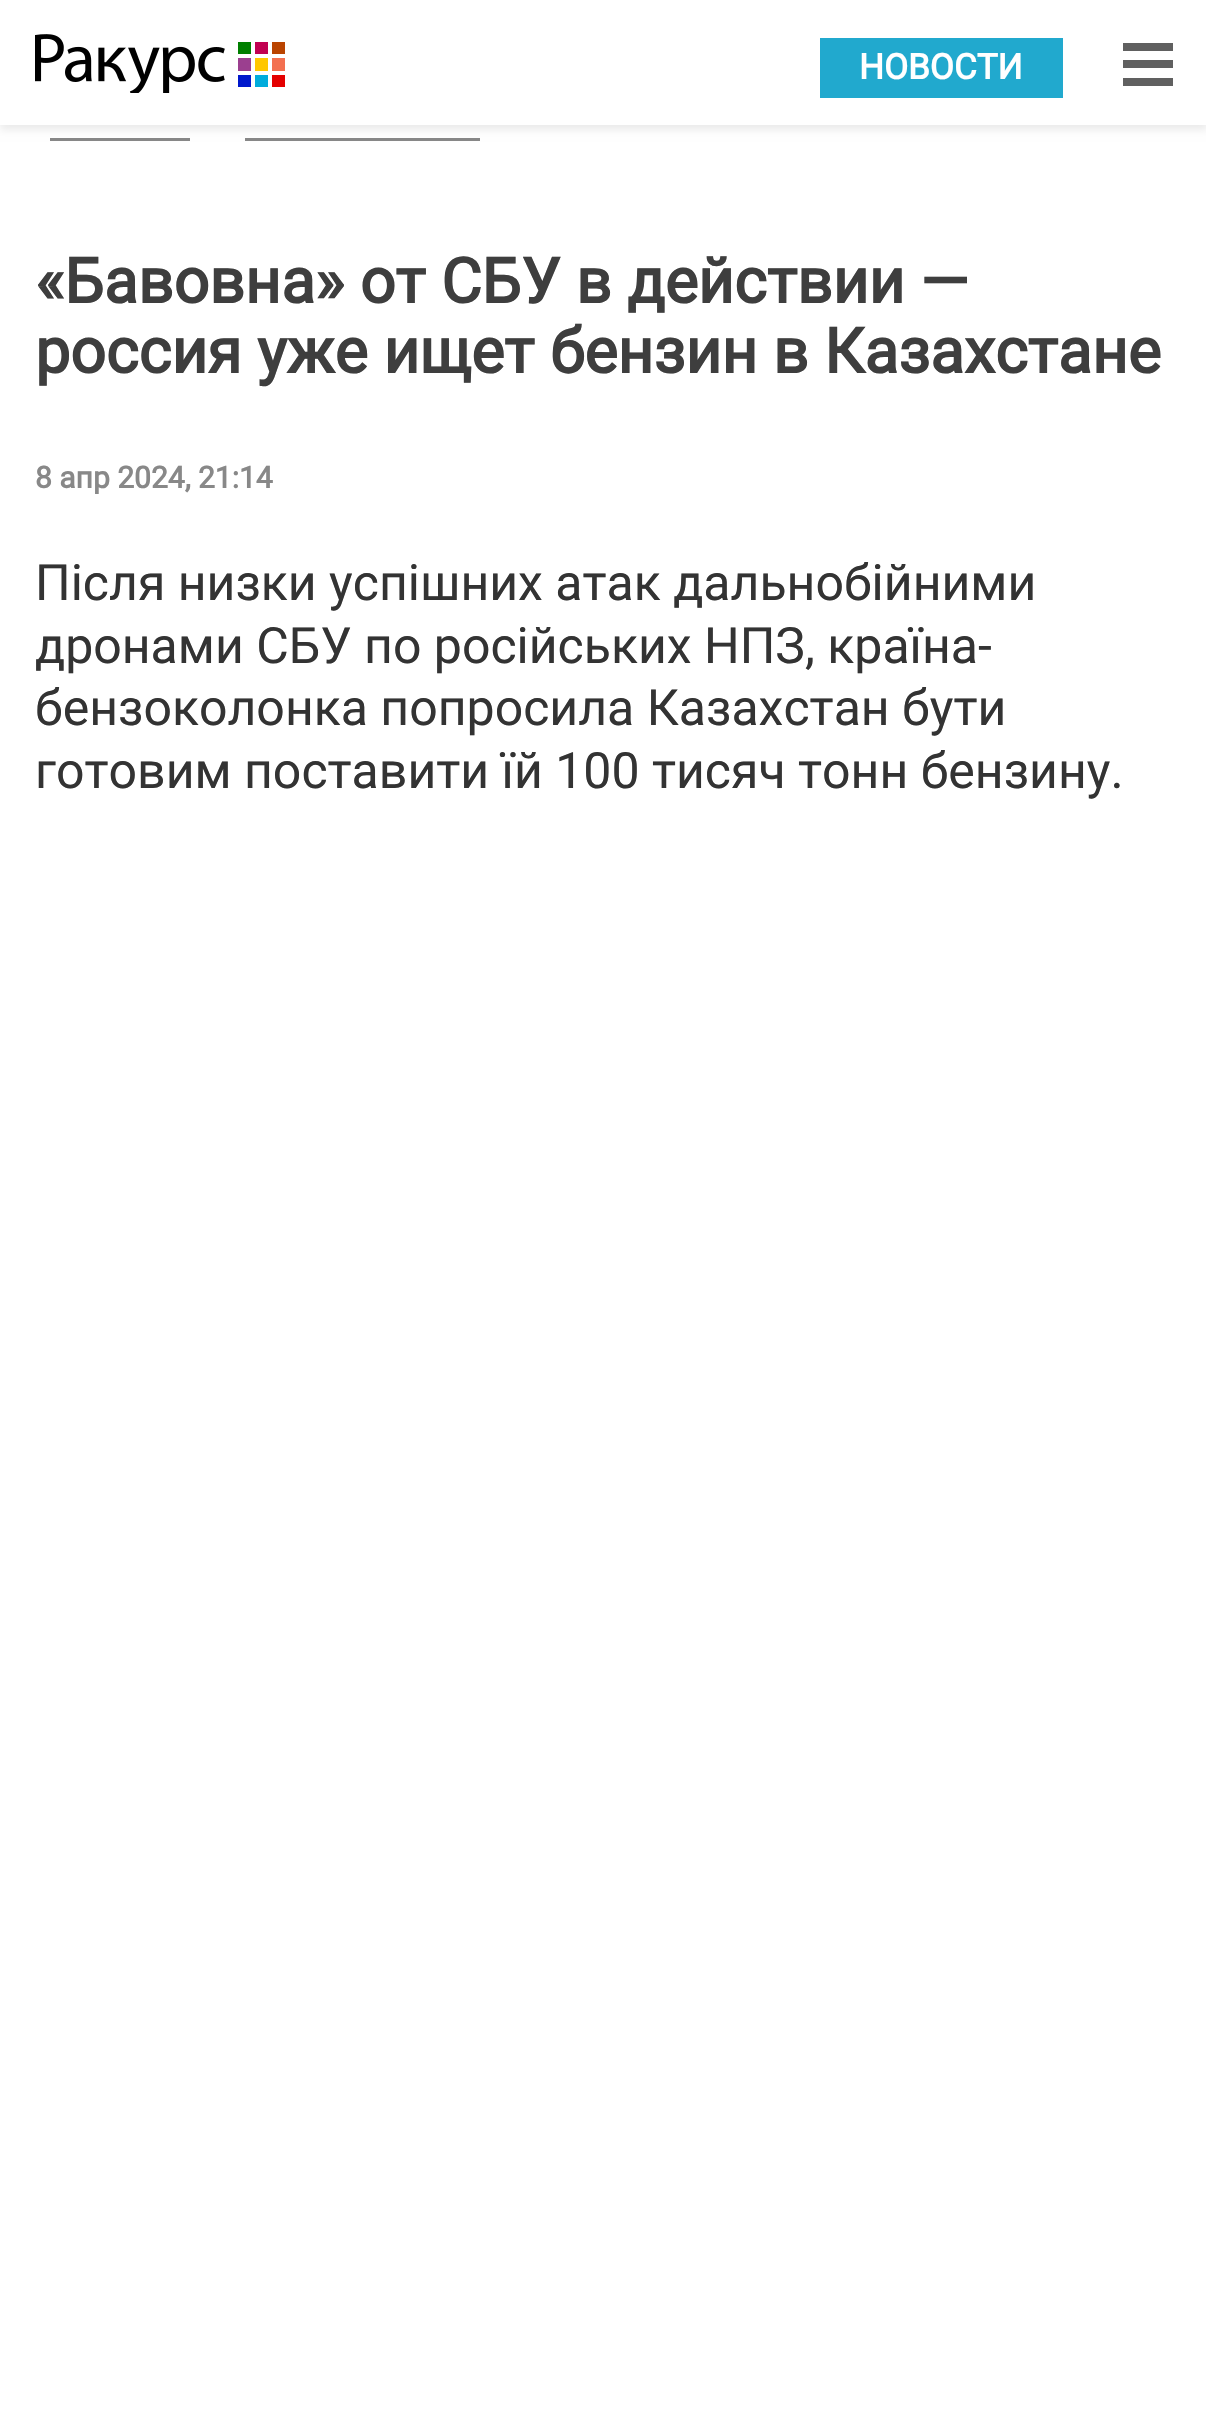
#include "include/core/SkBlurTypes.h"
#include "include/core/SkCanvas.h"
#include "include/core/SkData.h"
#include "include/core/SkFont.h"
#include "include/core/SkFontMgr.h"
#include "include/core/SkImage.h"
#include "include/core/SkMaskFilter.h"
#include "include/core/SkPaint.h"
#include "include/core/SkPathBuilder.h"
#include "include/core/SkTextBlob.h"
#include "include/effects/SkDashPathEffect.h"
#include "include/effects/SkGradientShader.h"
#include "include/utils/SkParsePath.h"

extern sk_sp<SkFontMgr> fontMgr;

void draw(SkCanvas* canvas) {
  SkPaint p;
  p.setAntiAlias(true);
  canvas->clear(SK_ColorWHITE);
  p.setColor(SkColorSetRGB(136, 136, 136));
  canvas->drawRect(SkRect::MakeLTRB(50, 138, 190, 141), p);
  canvas->drawRect(SkRect::MakeLTRB(245, 138, 480, 141), p);
  p.setColor(SkColorSetARGB(20, 0, 0, 0));
  p.setMaskFilter(SkMaskFilter::MakeBlur(kNormal_SkBlurStyle, 4));
  canvas->drawRect(SkRect::MakeLTRB(0, 5, 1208, 130), p);
  p.setMaskFilter(nullptr);
  p.setColor(SK_ColorWHITE);
  canvas->drawRect(SkRect::MakeLTRB(0, 0, 1206, 125), p);
  canvas->drawImageRect(SkImages::DeferredFromEncodedData(SkData::MakeFromFileName("images/1.png")), SkRect::MakeLTRB(35, 34, 285, 93), SkSamplingOptions());
  p.setColor(SkColorSetRGB(96, 96, 96));
  canvas->drawRect(SkRect::MakeLTRB(1123, 43, 1173, 51), p);
  canvas->drawRect(SkRect::MakeLTRB(1123, 60, 1173, 68), p);
  canvas->drawRect(SkRect::MakeLTRB(1123, 78, 1173, 86), p);
  p.setColor(SkColorSetRGB(33, 169, 206));
  canvas->drawRect(SkRect::MakeLTRB(820, 38, 1063, 98), p);
  SkFont font1(fontMgr->matchFamilyStyle("Roboto", SkFontStyle::Bold()), 35);
  font1.setSubpixel(true);
  p.setColor(SK_ColorWHITE);
  canvas->drawString("НОВОСТИ", 859, 79, font1, p);
  SkFont font2(fontMgr->matchFamilyStyle("Roboto", SkFontStyle::Bold()), 62.5f);
  font2.setSubpixel(true);
  p.setColor(SkColorSetRGB(62, 62, 62));
  canvas->drawString("«Бавовна» от СБУ в действии —", 35, 303, font2, p);
  canvas->drawString("россия уже ищет бензин в Казахстане", 35, 373, font2, p);
  SkFont font3(fontMgr->matchFamilyStyle("Roboto", SkFontStyle::Bold()), 30);
  font3.setSubpixel(true);
  p.setColor(SkColorSetRGB(136, 136, 136));
  canvas->drawString("8 апр 2024, 21:14", 35, 488, font3, p);
  SkFont font4(fontMgr->matchFamilyStyle("Roboto", SkFontStyle::Normal()), 50);
  font4.setSubpixel(true);
  p.setColor(SkColorSetRGB(51, 51, 51));
  canvas->drawString("Після низки успішних атак дальнобійними", 35, 600, font4, p);
  canvas->drawString("дронами СБУ по російських НПЗ, країна-", 35, 663, font4, p);
  canvas->drawString("бензоколонка попросила Казахстан бути", 35, 725, font4, p);
  canvas->drawString("готовим поставити їй 100 тисяч тонн бензину.", 35, 788, font4, p);
}
